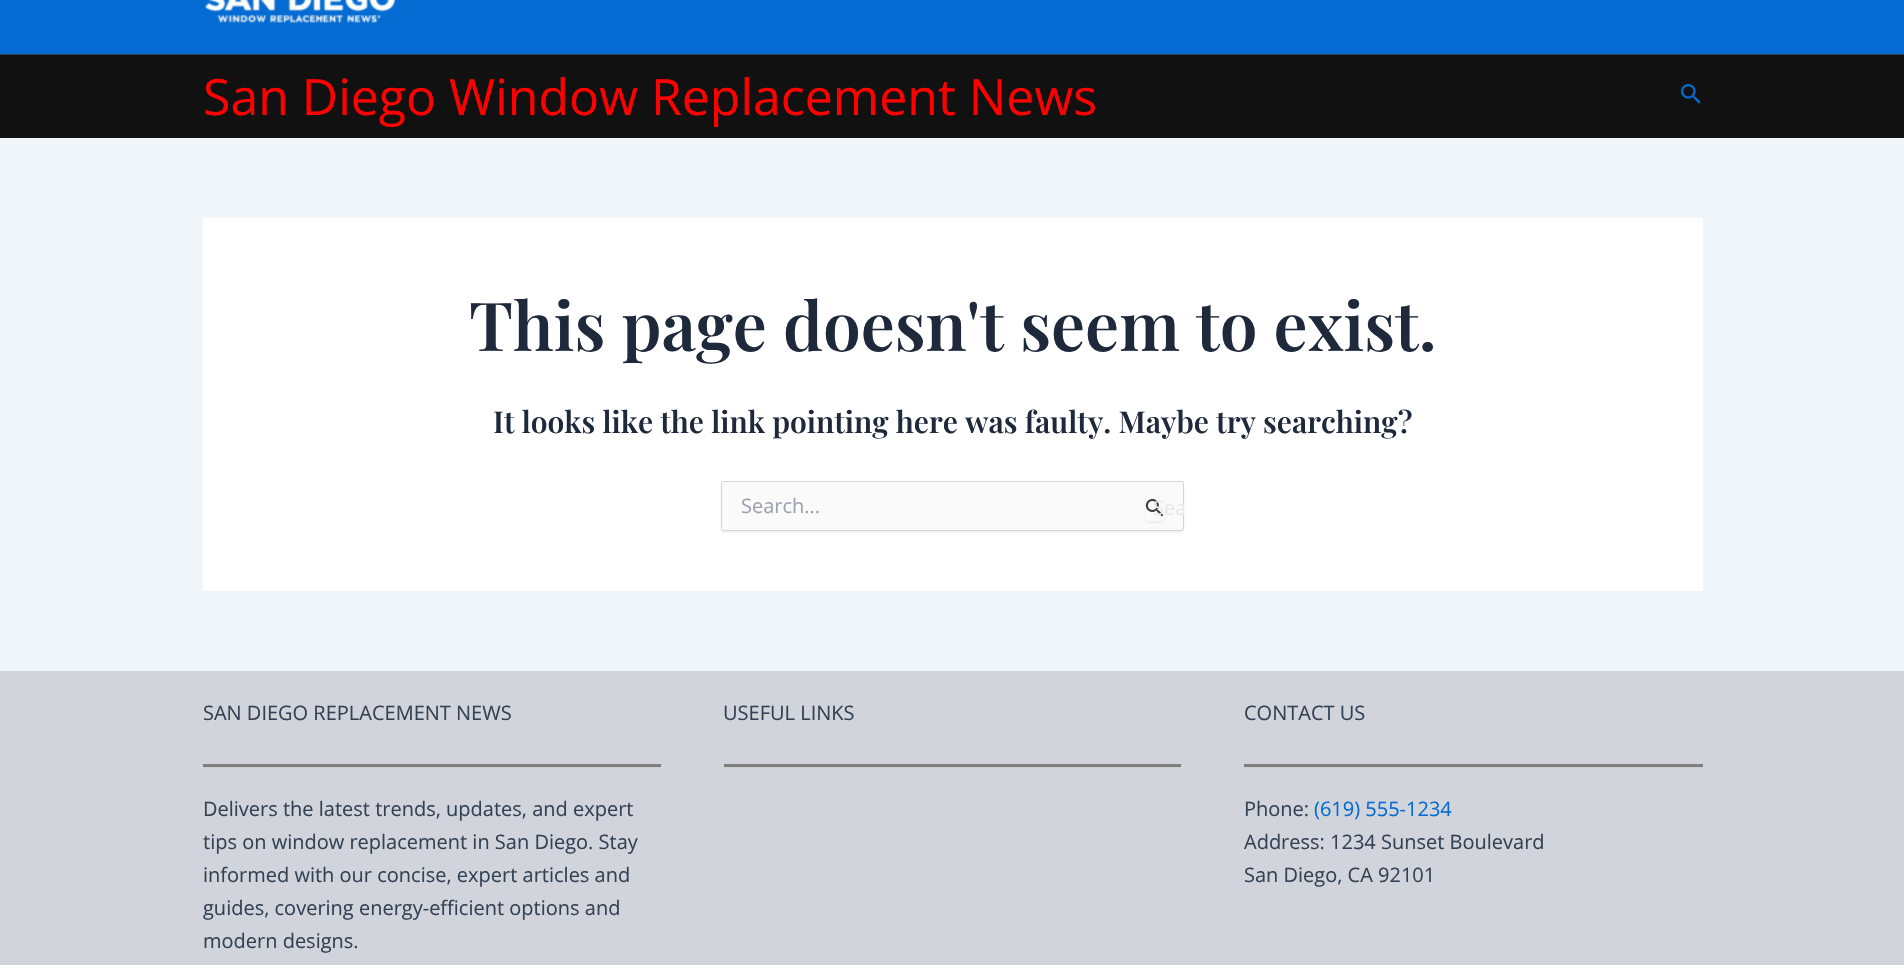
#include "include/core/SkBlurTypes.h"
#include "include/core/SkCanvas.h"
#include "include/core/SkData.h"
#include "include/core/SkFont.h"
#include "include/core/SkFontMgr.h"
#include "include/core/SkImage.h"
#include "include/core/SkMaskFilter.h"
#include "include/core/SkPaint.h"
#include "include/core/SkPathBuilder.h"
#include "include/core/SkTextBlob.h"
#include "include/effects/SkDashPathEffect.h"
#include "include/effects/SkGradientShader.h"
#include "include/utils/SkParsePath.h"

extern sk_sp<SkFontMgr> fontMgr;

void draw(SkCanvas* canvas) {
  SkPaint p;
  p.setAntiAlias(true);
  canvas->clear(SkColorSetRGB(240, 245, 250));
  p.setColor(SkColorSetRGB(4, 107, 210));
  canvas->drawRect(SkRect::MakeLTRB(0, 0, 1904, 54), p);
  p.setColor(SkColorSetRGB(51, 65, 85));
  canvas->drawRect(SkRect::MakeLTRB(0, 54, 1904, 55), p);
  canvas->drawImageRect(SkImages::DeferredFromEncodedData(SkData::MakeFromFileName("images/1.png")), SkRect::MakeLTRB(204, 0, 396, 23), SkSamplingOptions());
  p.setColor(SkColorSetRGB(17, 17, 17));
  canvas->drawRect(SkRect::MakeLTRB(0, 55, 1904, 138), p);
  canvas->drawImageRect(SkImages::DeferredFromEncodedData(SkData::MakeFromFileName("images/2.png")), SkRect::MakeLTRB(1681, 84, 1700, 104), SkSamplingOptions());
  p.setColor(SK_ColorWHITE);
  canvas->drawRect(SkRect::MakeLTRB(203, 218, 1703, 591), p);
  p.setColor(SkColorSetARGB(13, 0, 0, 0));
  p.setMaskFilter(SkMaskFilter::MakeBlur(kNormal_SkBlurStyle, 1));
  canvas->drawRoundRect(SkRect::MakeLTRB(721, 483, 1184, 533), 2.5f, 2.5f, p);
  p.setMaskFilter(nullptr);
  p.setColor(SkColorSetRGB(250, 250, 250));
  canvas->drawRoundRect(SkRect::MakeLTRB(721.5f, 481.5f, 1183.5f, 530.5f), 2, 2, p);
  p.setStyle(SkPaint::kStroke_Style);
  p.setStrokeWidth(1);
  p.setColor(SkColorSetRGB(209, 213, 219));
  canvas->drawRoundRect(SkRect::MakeLTRB(721.5f, 481.5f, 1183.5f, 530.5f), 2, 2, p);
  canvas->save();
  canvas->clipPath(SkPathBuilder(SkPathFillType::kEvenOdd).moveTo(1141, 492).lineTo(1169, 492).lineTo(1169, 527).lineTo(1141, 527).close().moveTo(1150, 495).lineTo(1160, 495).cubicTo(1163, 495, 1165, 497, 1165, 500).lineTo(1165, 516).cubicTo(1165, 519, 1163, 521, 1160, 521).lineTo(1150, 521).cubicTo(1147, 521, 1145, 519, 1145, 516).lineTo(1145, 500).cubicTo(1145, 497, 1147, 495, 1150, 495).close().detach(), true);
  p.setStyle(SkPaint::kFill_Style);
  p.setColor(SkColorSetARGB(13, 0, 0, 0));
  p.setMaskFilter(SkMaskFilter::MakeBlur(kNormal_SkBlurStyle, 1));
  canvas->drawRoundRect(SkRect::MakeLTRB(1145, 496, 1165, 523), 5, 5, p);
  p.setMaskFilter(nullptr);
  canvas->restore();
  canvas->drawImageRect(SkImages::DeferredFromEncodedData(SkData::MakeFromFileName("images/3.png")), SkRect::MakeLTRB(1145, 499, 1163, 517), SkSamplingOptions());
  p.setColor(SkColorSetRGB(209, 213, 219));
  canvas->drawRect(SkRect::MakeLTRB(0, 671, 1904, 965), p);
  p.setColor(SkColorSetRGB(204, 204, 204));
  canvas->drawRect(SkRect::MakeLTRB(203, 767, 661, 768), p);
  p.setColor(SkColorSetRGB(128, 128, 128));
  canvas->drawRect(SkRect::MakeLTRB(203, 764, 661, 767), p);
  p.setColor(SkColorSetRGB(204, 204, 204));
  canvas->drawRect(SkRect::MakeLTRB(724, 767, 1181, 768), p);
  p.setColor(SkColorSetRGB(128, 128, 128));
  canvas->drawRect(SkRect::MakeLTRB(724, 764, 1181, 767), p);
  p.setColor(SkColorSetRGB(204, 204, 204));
  canvas->drawRect(SkRect::MakeLTRB(1244, 767, 1703, 768), p);
  p.setColor(SkColorSetRGB(128, 128, 128));
  canvas->drawRect(SkRect::MakeLTRB(1244, 764, 1703, 767), p);
  SkFont font1(fontMgr->matchFamilyStyle("Open Sans", SkFontStyle::Normal()), 50);
  font1.setSubpixel(true);
  p.setColor(SkColorSetRGB(255, 0, 0));
  canvas->drawString("San Diego Window Replacement News", 203, 115, font1, p);
  SkFont font2(fontMgr->matchFamilyStyle("Playfair Display", SkFontStyle(600, SkFontStyle::kNormal_Width, SkFontStyle::kUpright_Slant)), 67.5f);
  font2.setSubpixel(true);
  p.setColor(SkColorSetRGB(30, 41, 59));
  canvas->drawString("This page doesn't seem to exist.", 469, 351, font2, p);
  SkFont font3(fontMgr->matchFamilyStyle("Playfair Display", SkFontStyle(600, SkFontStyle::kNormal_Width, SkFontStyle::kUpright_Slant)), 30);
  font3.setSubpixel(true);
  canvas->drawString("It looks like the link pointing here was faulty. Maybe try searching?", 493, 433, font3, p);
  SkFont font4(fontMgr->matchFamilyStyle("Open Sans", SkFontStyle::Normal()), 20);
  font4.setSubpixel(true);
  p.setColor(SkColorSetRGB(156, 163, 175));
  canvas->drawString("Search...", 741, 513, font4, p);
  canvas->save();
  canvas->clipPath(SkPathBuilder().moveTo(1130.5f, 481).lineTo(1181.5f, 481).cubicTo(1183, 481, 1184, 482, 1184, 483.5f).lineTo(1184, 531.5f).cubicTo(1184, 533, 1183, 534, 1181.5f, 534).lineTo(1130.5f, 534).cubicTo(1129, 534, 1128, 533, 1128, 531.5f).lineTo(1128, 483.5f).cubicTo(1128, 482, 1129, 481, 1130.5f, 481).close().detach(), true);
  p.setColor(SkColorSetRGB(233, 233, 233));
  canvas->drawString("Sea", 1153, 515, font4, p);
  canvas->restore();
  p.setColor(SkColorSetRGB(51, 65, 85));
  canvas->drawString("SAN DIEGO REPLACEMENT NEWS", 203, 720, font4, p);
  canvas->drawString("Delivers the latest trends, updates, and expert", 203, 816, font4, p);
  canvas->drawString("tips on window replacement in San Diego. Stay", 203, 849, font4, p);
  canvas->drawString("informed with our concise, expert articles and", 203, 882, font4, p);
  canvas->drawString("guides, covering energy-efficient options and", 203, 915, font4, p);
  canvas->drawString("modern designs.", 203, 948, font4, p);
  canvas->drawString("USEFUL LINKS", 723, 720, font4, p);
  canvas->drawString("CONTACT US", 1244, 720, font4, p);
  canvas->drawString("Phone:", 1244, 816, font4, p);
  p.setColor(SkColorSetRGB(4, 107, 210));
  canvas->drawString("(619) 555-1234", 1314, 816, font4, p);
  p.setColor(SkColorSetRGB(51, 65, 85));
  canvas->drawString("Address: 1234 Sunset Boulevard", 1244, 849, font4, p);
  canvas->drawString("San Diego, CA 92101", 1244, 882, font4, p);
}
